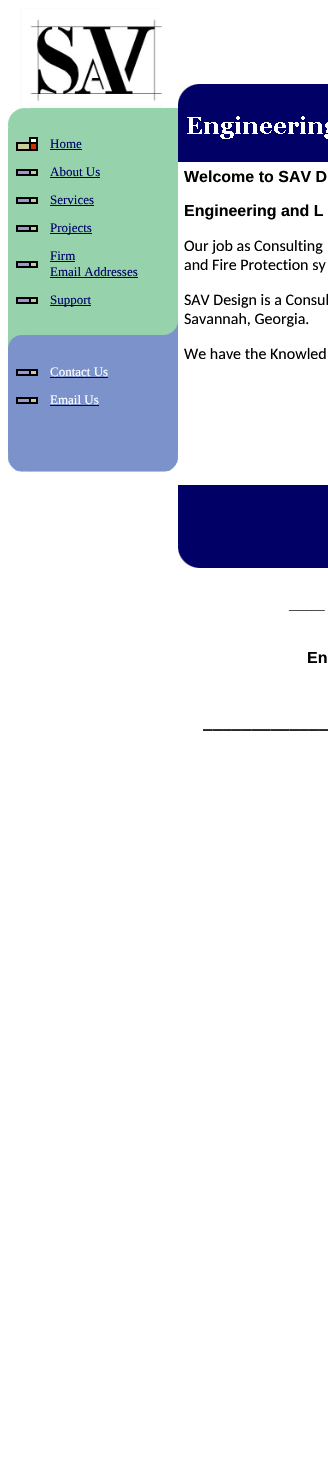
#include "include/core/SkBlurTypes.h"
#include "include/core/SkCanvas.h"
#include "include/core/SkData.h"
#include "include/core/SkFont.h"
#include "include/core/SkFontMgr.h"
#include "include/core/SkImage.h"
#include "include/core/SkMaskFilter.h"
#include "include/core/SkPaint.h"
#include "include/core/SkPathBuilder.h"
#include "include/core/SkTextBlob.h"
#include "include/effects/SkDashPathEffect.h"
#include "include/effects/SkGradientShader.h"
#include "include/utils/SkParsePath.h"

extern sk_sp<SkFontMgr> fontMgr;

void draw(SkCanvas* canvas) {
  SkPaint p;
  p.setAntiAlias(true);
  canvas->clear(SK_ColorWHITE);
  canvas->drawImageRect(SkImages::DeferredFromEncodedData(SkData::MakeFromFileName("images/1.png")), SkRect::MakeLTRB(20, 8, 163, 108), SkSamplingOptions());
  canvas->drawImageRect(SkImages::DeferredFromEncodedData(SkData::MakeFromFileName("images/2.png")), SkRect::MakeLTRB(178, 84, 328, 108), SkSamplingOptions());
  p.setColor(SkColorSetRGB(150, 210, 171));
  canvas->drawRect(SkRect::MakeLTRB(31, 108, 178, 128), p);
  canvas->drawImageRect(SkImages::DeferredFromEncodedData(SkData::MakeFromFileName("images/3.png")), SkRect::MakeLTRB(8, 108, 31, 128), SkSamplingOptions());
  canvas->drawRect(SkRect::MakeLTRB(8, 128, 178, 316), p);
  canvas->drawImageRect(SkImages::DeferredFromEncodedData(SkData::MakeFromFileName("images/4.png")), SkRect::MakeLTRB(16, 137, 38, 151), SkSamplingOptions());
  p.setColor(SkColorSetRGB(0, 0, 102));
  canvas->drawRect(SkRect::MakeLTRB(50, 149, 82, 150), p);
  canvas->drawImageRect(SkImages::DeferredFromEncodedData(SkData::MakeFromFileName("images/5.png")), SkRect::MakeLTRB(16, 169, 38, 176), SkSamplingOptions());
  canvas->drawRect(SkRect::MakeLTRB(50, 177, 100, 178), p);
  canvas->drawImageRect(SkImages::DeferredFromEncodedData(SkData::MakeFromFileName("images/5.png")), SkRect::MakeLTRB(16, 197, 38, 204), SkSamplingOptions());
  canvas->drawRect(SkRect::MakeLTRB(50, 205, 94, 206), p);
  canvas->drawImageRect(SkImages::DeferredFromEncodedData(SkData::MakeFromFileName("images/5.png")), SkRect::MakeLTRB(16, 225, 38, 232), SkSamplingOptions());
  canvas->drawRect(SkRect::MakeLTRB(50, 233, 92, 234), p);
  canvas->drawImageRect(SkImages::DeferredFromEncodedData(SkData::MakeFromFileName("images/5.png")), SkRect::MakeLTRB(16, 261, 38, 268), SkSamplingOptions());
  canvas->drawRect(SkRect::MakeLTRB(50, 261, 75, 262), p);
  canvas->drawRect(SkRect::MakeLTRB(50, 277, 138, 278), p);
  canvas->drawImageRect(SkImages::DeferredFromEncodedData(SkData::MakeFromFileName("images/5.png")), SkRect::MakeLTRB(16, 297, 38, 304), SkSamplingOptions());
  canvas->drawRect(SkRect::MakeLTRB(50, 305, 91, 306), p);
  p.setColor(SkColorSetRGB(124, 146, 202));
  canvas->drawRect(SkRect::MakeLTRB(8, 352, 178, 453), p);
  canvas->drawImageRect(SkImages::DeferredFromEncodedData(SkData::MakeFromFileName("images/6.png")), SkRect::MakeLTRB(8, 316, 178, 352), SkSamplingOptions());
  canvas->drawImageRect(SkImages::DeferredFromEncodedData(SkData::MakeFromFileName("images/5.png")), SkRect::MakeLTRB(16, 369, 38, 376), SkSamplingOptions());
  p.setColor(SkColorSetRGB(0, 0, 102));
  canvas->drawRect(SkRect::MakeLTRB(50, 377, 108, 378), p);
  canvas->drawImageRect(SkImages::DeferredFromEncodedData(SkData::MakeFromFileName("images/5.png")), SkRect::MakeLTRB(16, 397, 38, 404), SkSamplingOptions());
  canvas->drawRect(SkRect::MakeLTRB(50, 405, 99, 406), p);
  canvas->drawImageRect(SkImages::DeferredFromEncodedData(SkData::MakeFromFileName("images/7.png")), SkRect::MakeLTRB(8, 453, 178, 473), SkSamplingOptions());
  canvas->drawRect(SkRect::MakeLTRB(178, 108, 328, 544), p);
  canvas->drawImageRect(SkImages::DeferredFromEncodedData(SkData::MakeFromFileName("images/8.png")), SkRect::MakeLTRB(187, 116, 328, 139), SkSamplingOptions());
  p.setColor(SK_ColorWHITE);
  canvas->drawRect(SkRect::MakeLTRB(178, 162, 328, 485), p);
  canvas->drawImageRect(SkImages::DeferredFromEncodedData(SkData::MakeFromFileName("images/9.png")), SkRect::MakeLTRB(178, 544, 328, 568), SkSamplingOptions());
  SkFont font1(fontMgr->matchFamilyStyle("Liberation Serif", SkFontStyle::Normal()), 13);
  font1.setSubpixel(true);
  p.setColor(SkColorSetRGB(0, 0, 102));
  canvas->drawString("Home", 50, 148, font1, p);
  canvas->drawString("About Us", 50, 176, font1, p);
  canvas->drawString("Services", 50, 204, font1, p);
  canvas->drawString("Projects", 50, 232, font1, p);
  canvas->drawString("Firm", 50, 260, font1, p);
  canvas->drawString("Email Addresses", 50, 276, font1, p);
  canvas->drawString("Support", 50, 304, font1, p);
  p.setColor(SK_ColorWHITE);
  canvas->drawString("Contact Us", 50, 376, font1, p);
  canvas->drawString("Email Us", 50, 404, font1, p);
  SkFont font2(fontMgr->matchFamilyStyle("Liberation Sans", SkFontStyle::Bold()), 16);
  font2.setSubpixel(true);
  p.setColor(SK_ColorBLACK);
  canvas->drawString("Welcome to SAV D", 184, 182, font2, p);
  canvas->drawString("Engineering and L", 184, 216, font2, p);
  SkFont font3(fontMgr->matchFamilyStyle("Carlito", SkFontStyle::Normal()), 16);
  font3.setSubpixel(true);
  canvas->drawString("Our job as Consulting", 184, 251, font3, p);
  canvas->drawString("and Fire Protection sy", 184, 270, font3, p);
  canvas->drawString("SAV Design is a Consul", 184, 305, font3, p);
  canvas->drawString("Savannah, Georgia.", 184, 324, font3, p);
  canvas->drawString("We have the Knowled", 184, 359, font3, p);
  canvas->drawString("____", 289, 609, font2, p);
  canvas->drawString("En", 307, 663, font2, p);
  SkFont font4(fontMgr->matchFamilyStyle("DejaVu Sans Mono", SkFontStyle::Bold()), 16);
  font4.setSubpixel(true);
  canvas->drawString("_____________", 203, 727, font4, p);
}
